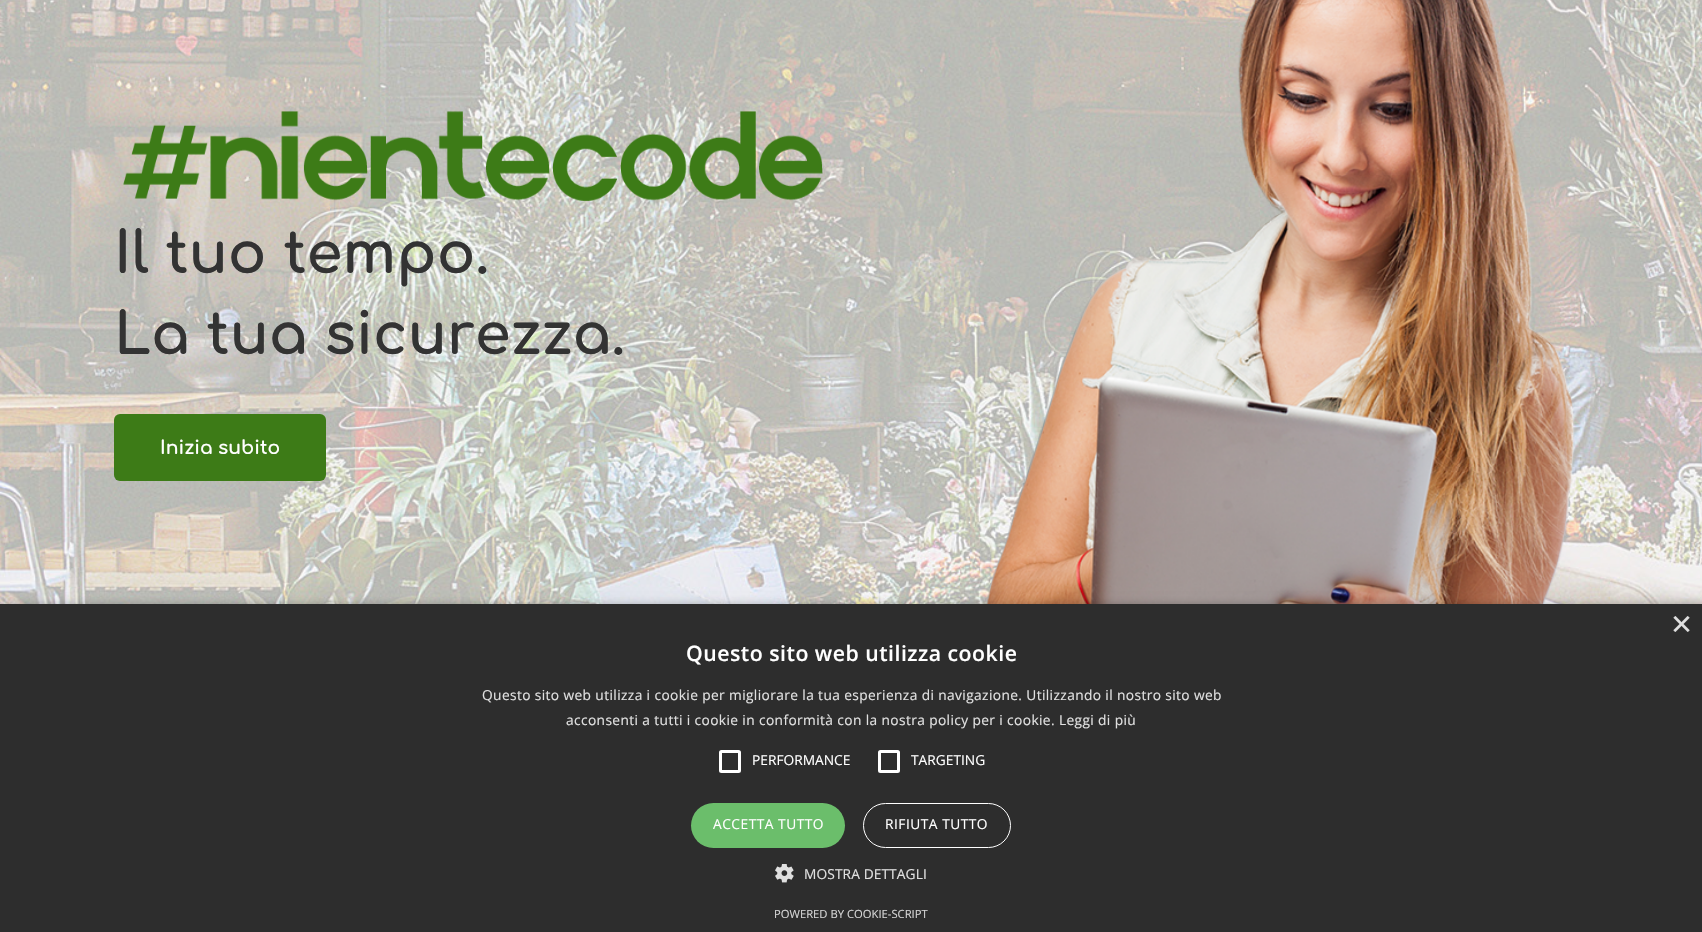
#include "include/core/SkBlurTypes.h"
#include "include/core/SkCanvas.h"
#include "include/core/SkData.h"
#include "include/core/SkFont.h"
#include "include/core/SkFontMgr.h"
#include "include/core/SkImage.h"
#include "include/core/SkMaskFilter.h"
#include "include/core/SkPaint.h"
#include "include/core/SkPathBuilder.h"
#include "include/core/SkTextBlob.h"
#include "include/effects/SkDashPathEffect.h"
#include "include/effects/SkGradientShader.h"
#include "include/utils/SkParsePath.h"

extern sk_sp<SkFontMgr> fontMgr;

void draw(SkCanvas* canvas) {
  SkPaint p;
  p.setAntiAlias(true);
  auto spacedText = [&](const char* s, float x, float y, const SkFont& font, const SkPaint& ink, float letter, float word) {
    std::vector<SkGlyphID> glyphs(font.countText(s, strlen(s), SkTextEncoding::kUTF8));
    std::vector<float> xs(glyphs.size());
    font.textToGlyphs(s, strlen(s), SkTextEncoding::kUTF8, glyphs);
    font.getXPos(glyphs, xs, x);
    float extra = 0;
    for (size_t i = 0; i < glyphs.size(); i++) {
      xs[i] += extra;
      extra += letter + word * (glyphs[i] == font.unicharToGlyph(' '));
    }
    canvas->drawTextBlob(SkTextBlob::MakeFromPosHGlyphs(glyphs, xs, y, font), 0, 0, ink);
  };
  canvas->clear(SK_ColorWHITE);
  canvas->drawImageRect(SkImages::DeferredFromEncodedData(SkData::MakeFromFileName("images/1.png")), SkRect::MakeLTRB(0, 0, 1702, 604), SkSamplingOptions());
  canvas->drawImageRect(SkImages::DeferredFromEncodedData(SkData::MakeFromFileName("images/2.png")), SkRect::MakeLTRB(123, 111, 823, 201), SkSamplingOptions());
  p.setColor(SkColorSetRGB(61, 123, 23));
  canvas->drawRoundRect(SkRect::MakeLTRB(114, 414, 326, 481), 6, 6, p);
  canvas->drawImageRect(SkImages::DeferredFromEncodedData(SkData::MakeFromFileName("images/3.png")), SkRect::MakeLTRB(986, 0, 1575, 604), SkSamplingOptions());
  p.setColor(SkColorSetARGB(89, 0, 0, 0));
  p.setMaskFilter(SkMaskFilter::MakeBlur(kNormal_SkBlurStyle, 5));
  canvas->drawRect(SkRect::MakeLTRB(1, 606, 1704, 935), p);
  p.setMaskFilter(nullptr);
  p.setColor(SkColorSetRGB(45, 45, 45));
  canvas->drawRect(SkRect::MakeLTRB(0, 604, 1702, 932), p);
  p.setStyle(SkPaint::kStroke_Style);
  p.setStrokeWidth(3);
  p.setColor(SK_ColorWHITE);
  canvas->drawRoundRect(SkRect::MakeLTRB(720.5f, 751.5f, 739.5f, 771.5f), 1, 1, p);
  canvas->drawRoundRect(SkRect::MakeLTRB(879.5f, 751.5f, 898.5f, 771.5f), 1, 1, p);
  p.setStyle(SkPaint::kFill_Style);
  p.setColor(SkColorSetRGB(107, 190, 107));
  canvas->drawRoundRect(SkRect::MakeLTRB(691, 803, 845, 848), 22.5f, 22.5f, p);
  p.setStyle(SkPaint::kStroke_Style);
  p.setStrokeWidth(1);
  p.setColor(SK_ColorWHITE);
  canvas->drawRoundRect(SkRect::MakeLTRB(863.5f, 803.5f, 1010.5f, 847.5f), 22, 22, p);
  canvas->drawImageRect(SkImages::DeferredFromEncodedData(SkData::MakeFromFileName("images/4.png")), SkRect::MakeLTRB(775, 864, 794, 883), SkSamplingOptions());
  SkFont font1(fontMgr->matchFamilyStyle("Comfortaa", SkFontStyle::Bold()), 57.5f);
  font1.setSubpixel(true);
  p.setStyle(SkPaint::kFill_Style);
  p.setColor(SkColorSetRGB(51, 51, 51));
  canvas->drawString("Il tuo tempo.", 114, 273, font1, p);
  canvas->drawString("La tua sicurezza.", 114, 354, font1, p);
  SkFont font2(fontMgr->matchFamilyStyle("Comfortaa", SkFontStyle::Bold()), 18.75f);
  font2.setSubpixel(true);
  p.setColor(SK_ColorWHITE);
  canvas->drawString("Inizia subito", 160, 454, font2, p);
  SkFont font3(fontMgr->matchFamilyStyle("Liberation Sans", SkFontStyle::Normal()), 36);
  font3.setSubpixel(true);
  p.setColor(SkColorSetRGB(224, 224, 224));
  canvas->drawString("×", 1671, 636, font3, p);
  SkFont font4(fontMgr->matchFamilyStyle("Open Sans", SkFontStyle(600, SkFontStyle::kNormal_Width, SkFontStyle::kUpright_Slant)), 21.25f);
  font4.setSubpixel(true);
  p.setColor(SK_ColorWHITE);
  spacedText("Questo sito web utilizza cookie", 686, 661, font4, p, 0.5f, 0);
  SkFont font5(fontMgr->matchFamilyStyle("Open Sans", SkFontStyle::Normal()), 13.75f);
  font5.setSubpixel(true);
  p.setColor(SkColorSetRGB(224, 224, 224));
  spacedText("Questo sito web utilizza i cookie per migliorare la tua esperienza di navigazione. Utilizzando il nostro sito web", 482, 700, font5, p, 0.38f, 0);
  spacedText("acconsenti a tutti i cookie in conformità con la nostra policy per i cookie. Leggi di più", 566, 725, font5, p, 0.38f, 0);
  p.setColor(SK_ColorWHITE);
  canvas->drawString("PERFORMANCE", 752, 765, font5, p);
  canvas->drawString("TARGETING", 911, 765, font5, p);
  spacedText("ACCETTA TUTTO", 713, 829, font5, p, 0.5f, 0);
  spacedText("RIFIUTA TUTTO", 885, 829, font5, p, 0.5f, 0);
  p.setColor(SkColorSetRGB(224, 224, 224));
  spacedText("MOSTRA DETTAGLI", 804, 879, font5, p, 0.1f, 0);
  SkFont font6(fontMgr->matchFamilyStyle("Open Sans", SkFontStyle::Normal()), 11.25f);
  font6.setSubpixel(true);
  p.setColor(SkColorSetRGB(213, 213, 213));
  canvas->drawString("POWERED BY COOKIE-SCRIPT", 774, 918, font6, p);
}
